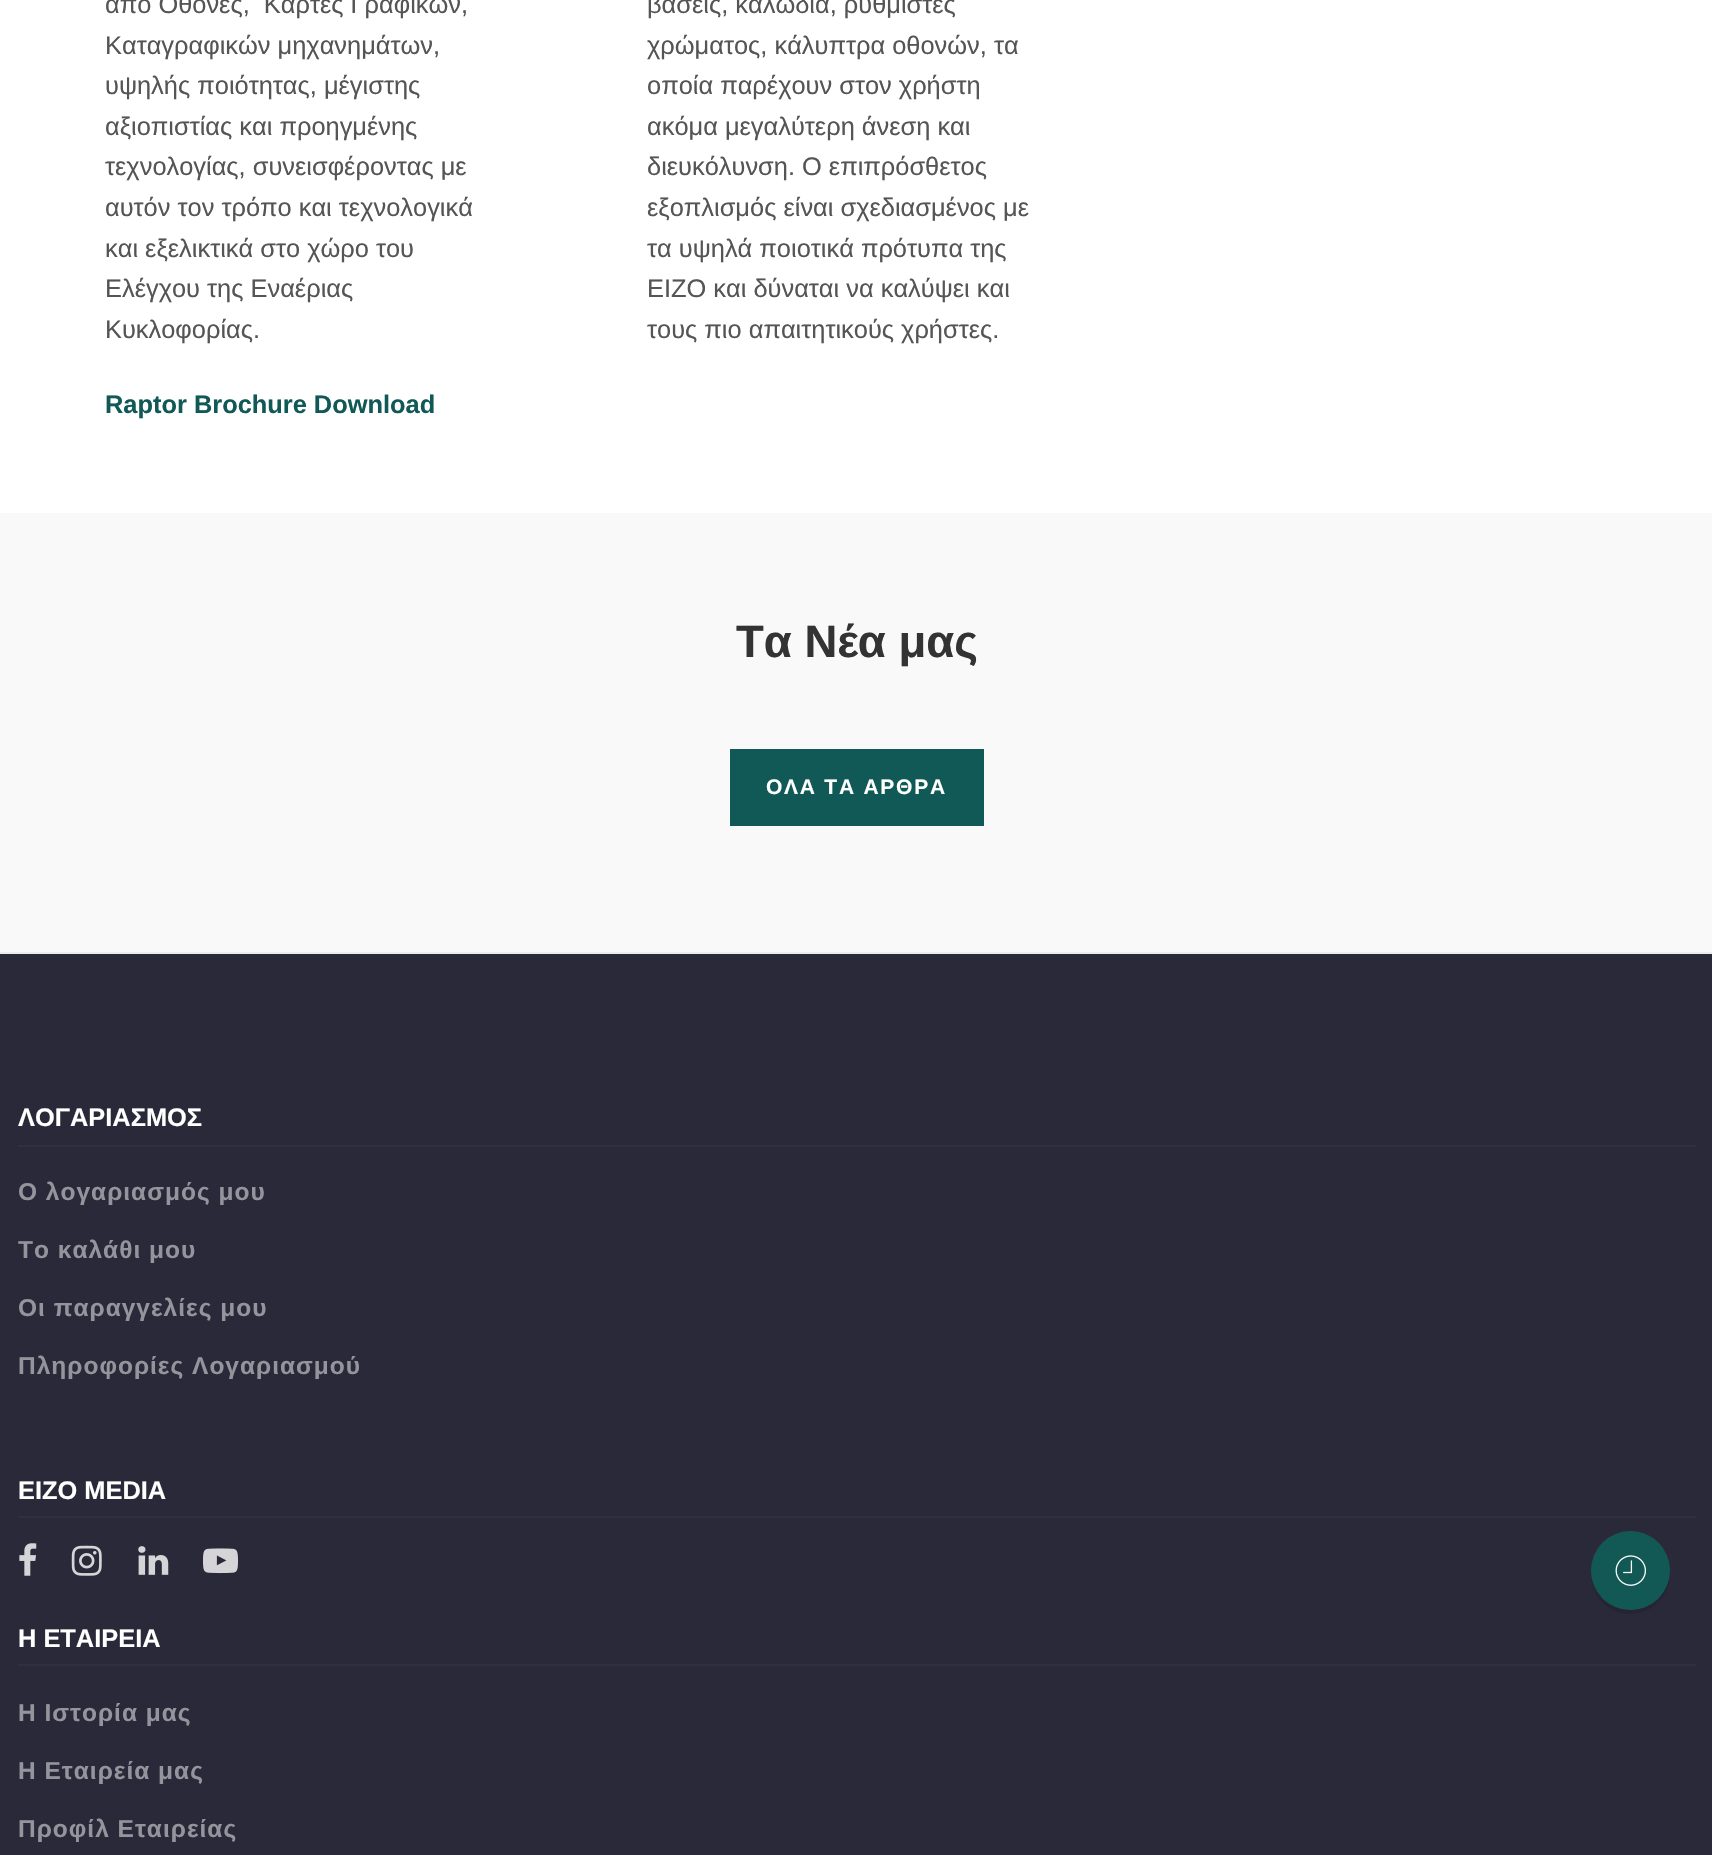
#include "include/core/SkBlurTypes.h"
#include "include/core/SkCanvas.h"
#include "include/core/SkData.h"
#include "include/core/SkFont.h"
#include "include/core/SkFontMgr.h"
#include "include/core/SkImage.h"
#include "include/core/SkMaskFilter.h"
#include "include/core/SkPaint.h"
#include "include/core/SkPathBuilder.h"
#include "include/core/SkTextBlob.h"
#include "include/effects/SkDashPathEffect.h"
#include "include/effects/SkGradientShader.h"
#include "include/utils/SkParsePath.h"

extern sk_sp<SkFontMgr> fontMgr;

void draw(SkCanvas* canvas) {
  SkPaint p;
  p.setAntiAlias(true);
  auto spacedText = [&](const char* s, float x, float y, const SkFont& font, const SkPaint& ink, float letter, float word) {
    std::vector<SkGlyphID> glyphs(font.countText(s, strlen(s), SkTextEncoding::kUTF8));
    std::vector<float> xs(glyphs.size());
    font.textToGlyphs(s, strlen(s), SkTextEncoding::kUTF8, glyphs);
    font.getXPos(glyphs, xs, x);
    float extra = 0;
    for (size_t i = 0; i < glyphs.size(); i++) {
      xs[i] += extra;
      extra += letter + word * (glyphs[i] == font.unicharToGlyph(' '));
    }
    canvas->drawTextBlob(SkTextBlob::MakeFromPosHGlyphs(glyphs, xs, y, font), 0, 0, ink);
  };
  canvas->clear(SK_ColorWHITE);
  p.setColor(SkColorSetRGB(249, 249, 249));
  canvas->drawRect(SkRect::MakeLTRB(0, 513, 1712, 952), p);
  p.setColor(SkColorSetRGB(17, 89, 86));
  canvas->drawRect(SkRect::MakeLTRB(730, 749, 984, 826), p);
  p.setColor(SkColorSetRGB(41, 41, 57));
  canvas->drawRect(SkRect::MakeLTRB(0, 954, 1712, 1855), p);
  p.setColor(SkColorSetRGB(236, 236, 236));
  canvas->drawRect(SkRect::MakeLTRB(0, 952, 1712, 954), p);
  p.setColor(SkColorSetRGB(48, 48, 60));
  canvas->drawRect(SkRect::MakeLTRB(18, 1145, 1696, 1147), p);
  canvas->drawRect(SkRect::MakeLTRB(18, 1516, 1696, 1518), p);
  canvas->drawImageRect(SkImages::DeferredFromEncodedData(SkData::MakeFromFileName("images/1.png")), SkRect::MakeLTRB(19, 1543, 37, 1576), SkSamplingOptions());
  canvas->drawImageRect(SkImages::DeferredFromEncodedData(SkData::MakeFromFileName("images/2.png")), SkRect::MakeLTRB(71, 1545, 102, 1576), SkSamplingOptions());
  canvas->drawImageRect(SkImages::DeferredFromEncodedData(SkData::MakeFromFileName("images/3.png")), SkRect::MakeLTRB(138, 1546, 169, 1575), SkSamplingOptions());
  canvas->drawImageRect(SkImages::DeferredFromEncodedData(SkData::MakeFromFileName("images/4.png")), SkRect::MakeLTRB(203, 1548, 238, 1574), SkSamplingOptions());
  canvas->drawRect(SkRect::MakeLTRB(18, 1664, 1696, 1666), p);
  p.setColor(SkColorSetRGB(36, 36, 51));
  canvas->drawPath(SkPathBuilder().moveTo(1591, 1575).cubicTo(1591, 1583, 1594, 1590, 1598, 1597).cubicTo(1622, 1632, 1677, 1609, 1669, 1567).cubicTo(1670, 1576, 1668, 1585, 1663, 1593).cubicTo(1642, 1623, 1595, 1611, 1591, 1575).close().detach(), p);
  p.setColor(SkColorSetRGB(18, 89, 86));
  canvas->drawCircle(1630.5f, 1570.5f, 39.5f, p);
  canvas->drawImageRect(SkImages::DeferredFromEncodedData(SkData::MakeFromFileName("images/5.png")), SkRect::MakeLTRB(1615, 1555, 1646, 1586), SkSamplingOptions());
  SkFont font1(fontMgr->matchFamilyStyle("Liberation Sans", SkFontStyle::Normal()), 25.4f);
  font1.setSubpixel(true);
  p.setColor(SkColorSetRGB(85, 85, 85));
  canvas->drawString("από Οθόνες,  Κάρτες Γραφικών,", 105, 13, font1, p);
  canvas->drawString("Καταγραφικών μηχανημάτων,", 105, 54, font1, p);
  canvas->drawString("υψηλής ποιότητας, μέγιστης", 105, 94, font1, p);
  canvas->drawString("αξιοπιστίας και προηγμένης", 105, 135, font1, p);
  canvas->drawString("τεχνολογίας, συνεισφέροντας με", 105, 175, font1, p);
  canvas->drawString("αυτόν τον τρόπο και τεχνολογικά", 105, 216, font1, p);
  canvas->drawString("και εξελικτικά στο χώρο του", 105, 257, font1, p);
  canvas->drawString("Ελέγχου της Εναέριας", 105, 297, font1, p);
  canvas->drawString("Κυκλοφορίας.", 105, 338, font1, p);
  SkFont font2(fontMgr->matchFamilyStyle("Liberation Sans", SkFontStyle::Bold()), 25.4f);
  font2.setSubpixel(true);
  p.setColor(SkColorSetRGB(17, 89, 86));
  canvas->drawString("Raptor Brochure Download", 105, 413, font2, p);
  p.setColor(SkColorSetRGB(85, 85, 85));
  canvas->drawString("βάσεις, καλώδια, ρυθμιστές", 647, 13, font1, p);
  canvas->drawString("χρώματος, κάλυπτρα οθονών, τα", 647, 54, font1, p);
  canvas->drawString("οποία παρέχουν στον χρήστη", 647, 94, font1, p);
  canvas->drawString("ακόμα μεγαλύτερη άνεση και", 647, 135, font1, p);
  canvas->drawString("διευκόλυνση. Ο επιπρόσθετος", 647, 175, font1, p);
  canvas->drawString("εξοπλισμός είναι σχεδιασμένος με", 647, 216, font1, p);
  canvas->drawString("τα υψηλά ποιοτικά πρότυπα της", 647, 257, font1, p);
  canvas->drawString("EIZO και δύναται να καλύψει και", 647, 297, font1, p);
  canvas->drawString("τους πιο απαιτητικούς χρήστες.", 647, 338, font1, p);
  SkFont font3(fontMgr->matchFamilyStyle("Liberation Sans", SkFontStyle::Bold()), 45.5f);
  font3.setSubpixel(true);
  p.setColor(SkColorSetRGB(51, 51, 51));
  canvas->drawString("Tα Νέα μας", 736, 657, font3, p);
  SkFont font4(fontMgr->matchFamilyStyle("Liberation Sans", SkFontStyle::Bold()), 21);
  font4.setSubpixel(true);
  p.setColor(SK_ColorWHITE);
  spacedText("ΟΛΑ ΤΑ ΑΡΘΡΑ", 766, 794, font4, p, 1.75f, 0);
  canvas->drawString("ΛΟΓΑΡΙΑΣΜΟΣ", 18, 1126, font2, p);
  SkFont font5(fontMgr->matchFamilyStyle("Liberation Sans", SkFontStyle::Bold()), 24.5f);
  font5.setSubpixel(true);
  p.setColor(SkColorSetRGB(148, 148, 156));
  spacedText("Ο λογαριασμός μου", 18, 1200, font5, p, 1, 0);
  spacedText("Το καλάθι μου", 18, 1258, font5, p, 1, 0);
  spacedText("Οι παραγγελίες μου", 18, 1316, font5, p, 1, 0);
  spacedText("Πληροφορίες Λογαριασμού", 18, 1374, font5, p, 1, 0);
  p.setColor(SK_ColorWHITE);
  canvas->drawString("EIZO MEDIA", 18, 1499, font2, p);
  canvas->drawString("Η ΕΤΑΙΡΕΙΑ", 18, 1647, font2, p);
  p.setColor(SkColorSetRGB(148, 148, 156));
  spacedText("Η Ιστορία μας", 18, 1721, font5, p, 1, 0);
  spacedText("Η Εταιρεία μας", 18, 1779, font5, p, 1, 0);
  spacedText("Προφίλ Εταιρείας", 18, 1837, font5, p, 1, 0);
}
